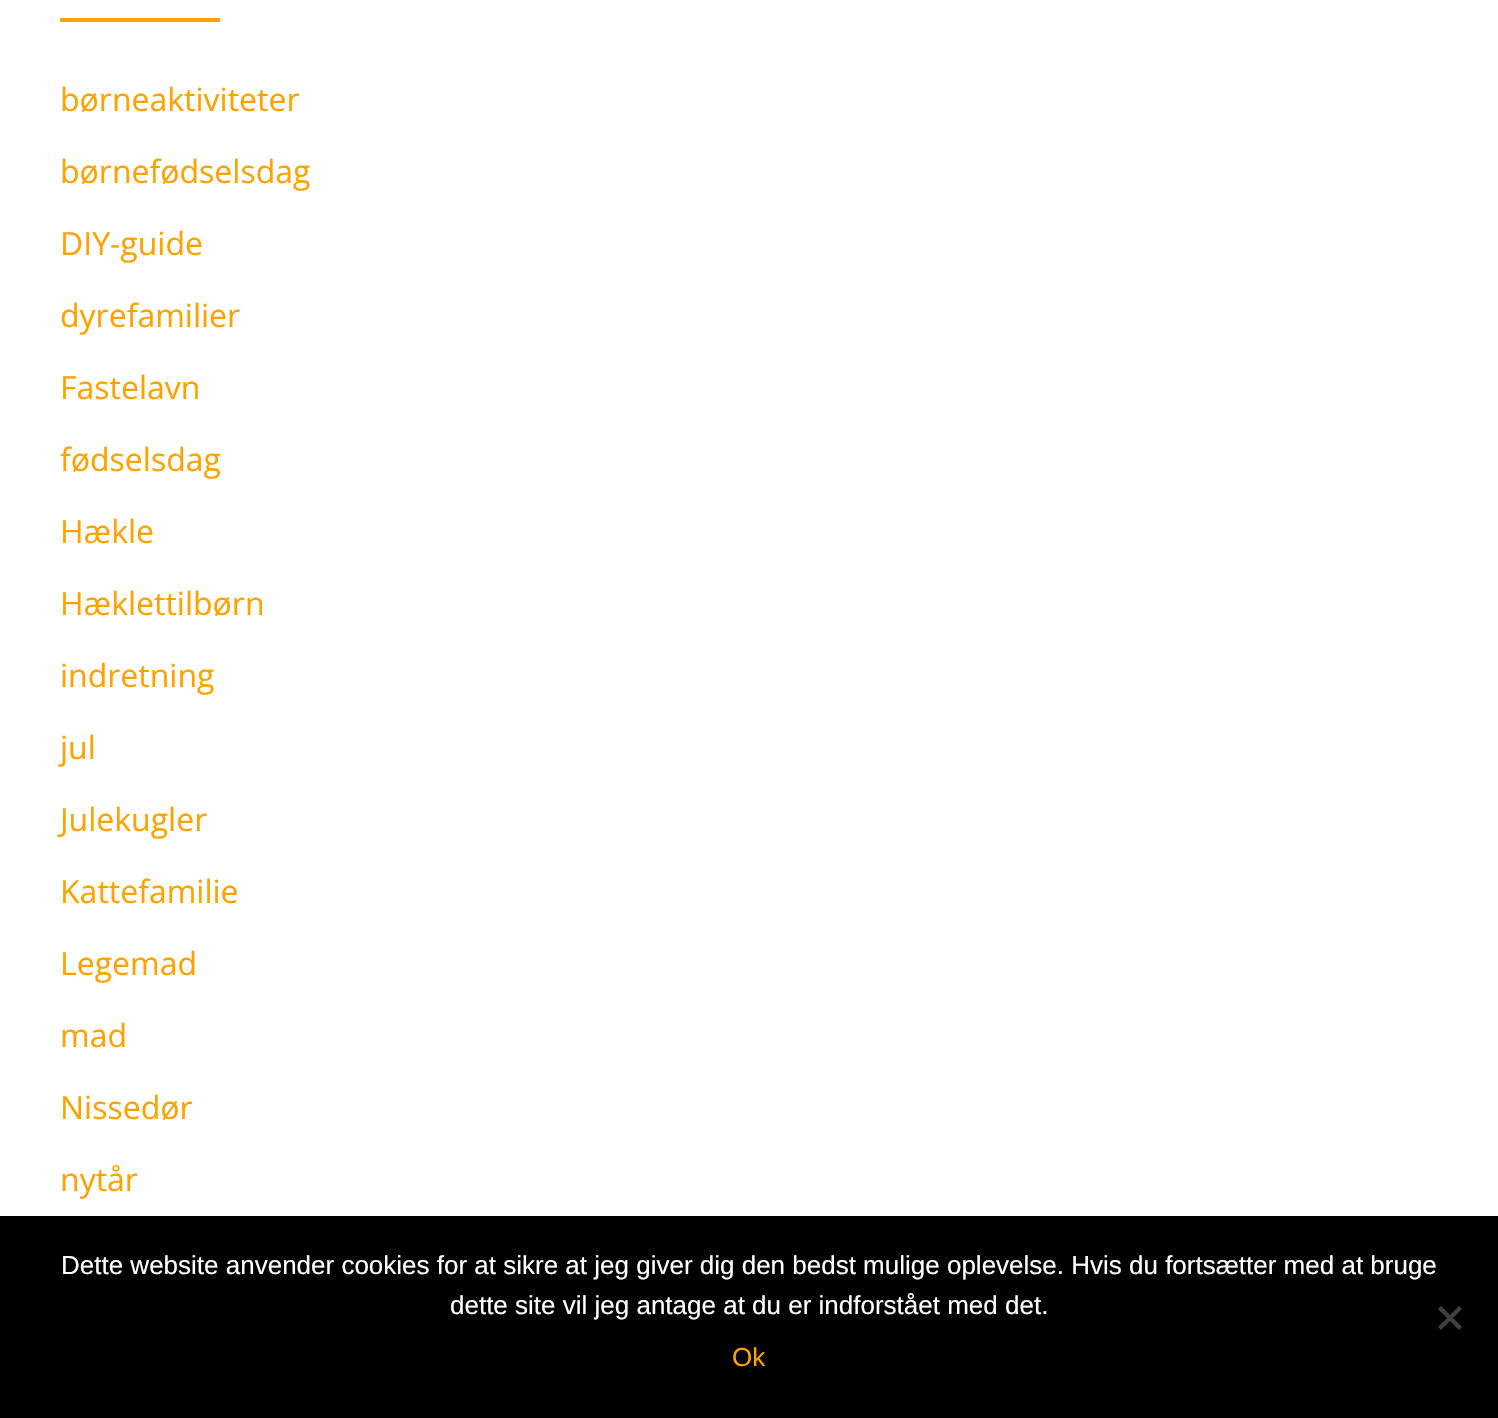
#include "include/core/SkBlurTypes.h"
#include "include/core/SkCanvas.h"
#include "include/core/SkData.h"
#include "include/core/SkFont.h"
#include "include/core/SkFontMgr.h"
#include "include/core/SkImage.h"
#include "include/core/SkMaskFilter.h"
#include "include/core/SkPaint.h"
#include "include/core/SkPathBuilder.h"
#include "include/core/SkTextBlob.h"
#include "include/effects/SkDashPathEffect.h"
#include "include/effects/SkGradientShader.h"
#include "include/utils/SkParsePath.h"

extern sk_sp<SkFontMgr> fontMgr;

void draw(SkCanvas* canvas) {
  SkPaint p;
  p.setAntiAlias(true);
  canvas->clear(SK_ColorWHITE);
  p.setColor(SkColorSetRGB(255, 162, 0));
  canvas->drawRect(SkRect::MakeLTRB(60, 18, 220, 22), p);
  p.setColor(SK_ColorBLACK);
  canvas->drawRect(SkRect::MakeLTRB(0, 1216, 1498, 1418), p);
  p.setColor(SkColorSetRGB(64, 64, 64));
  canvas->drawPath(SkPathBuilder().moveTo(1459, 1306).lineTo(1462, 1309).lineTo(1441, 1330).lineTo(1438, 1327).close().detach(), p);
  canvas->drawPath(SkPathBuilder().moveTo(1438, 1309).lineTo(1441, 1306).lineTo(1462, 1327).lineTo(1459, 1330).close().detach(), p);
  SkFont font1(fontMgr->matchFamilyStyle("Open Sans", SkFontStyle::Normal()), 32);
  font1.setSubpixel(true);
  p.setColor(SkColorSetRGB(255, 162, 0));
  canvas->drawString("børneaktiviteter", 60, 111, font1, p);
  canvas->drawString("børnefødselsdag", 60, 183, font1, p);
  canvas->drawString("DIY-guide", 60, 255, font1, p);
  canvas->drawString("dyrefamilier", 60, 327, font1, p);
  canvas->drawString("Fastelavn", 60, 399, font1, p);
  canvas->drawString("fødselsdag", 60, 471, font1, p);
  canvas->drawString("Hækle", 60, 543, font1, p);
  canvas->drawString("Hæklettilbørn", 60, 615, font1, p);
  canvas->drawString("indretning", 60, 687, font1, p);
  canvas->drawString("jul", 60, 759, font1, p);
  canvas->drawString("Julekugler", 60, 831, font1, p);
  canvas->drawString("Kattefamilie", 60, 903, font1, p);
  canvas->drawString("Legemad", 60, 975, font1, p);
  canvas->drawString("mad", 60, 1047, font1, p);
  canvas->drawString("Nissedør", 60, 1119, font1, p);
  canvas->drawString("nytår", 60, 1191, font1, p);
  SkFont font2(fontMgr->matchFamilyStyle("Liberation Sans", SkFontStyle::Normal()), 26);
  font2.setSubpixel(true);
  p.setColor(SK_ColorWHITE);
  canvas->drawString("Dette website anvender cookies for at sikre at jeg giver dig den bedst mulige oplevelse. Hvis du fortsætter med at bruge", 61, 1274, font2, p);
  canvas->drawString("dette site vil jeg antage at du er indforstået med det.", 450, 1314, font2, p);
  p.setColor(SkColorSetRGB(255, 162, 0));
  canvas->drawString("Ok", 732, 1366, font2, p);
}
